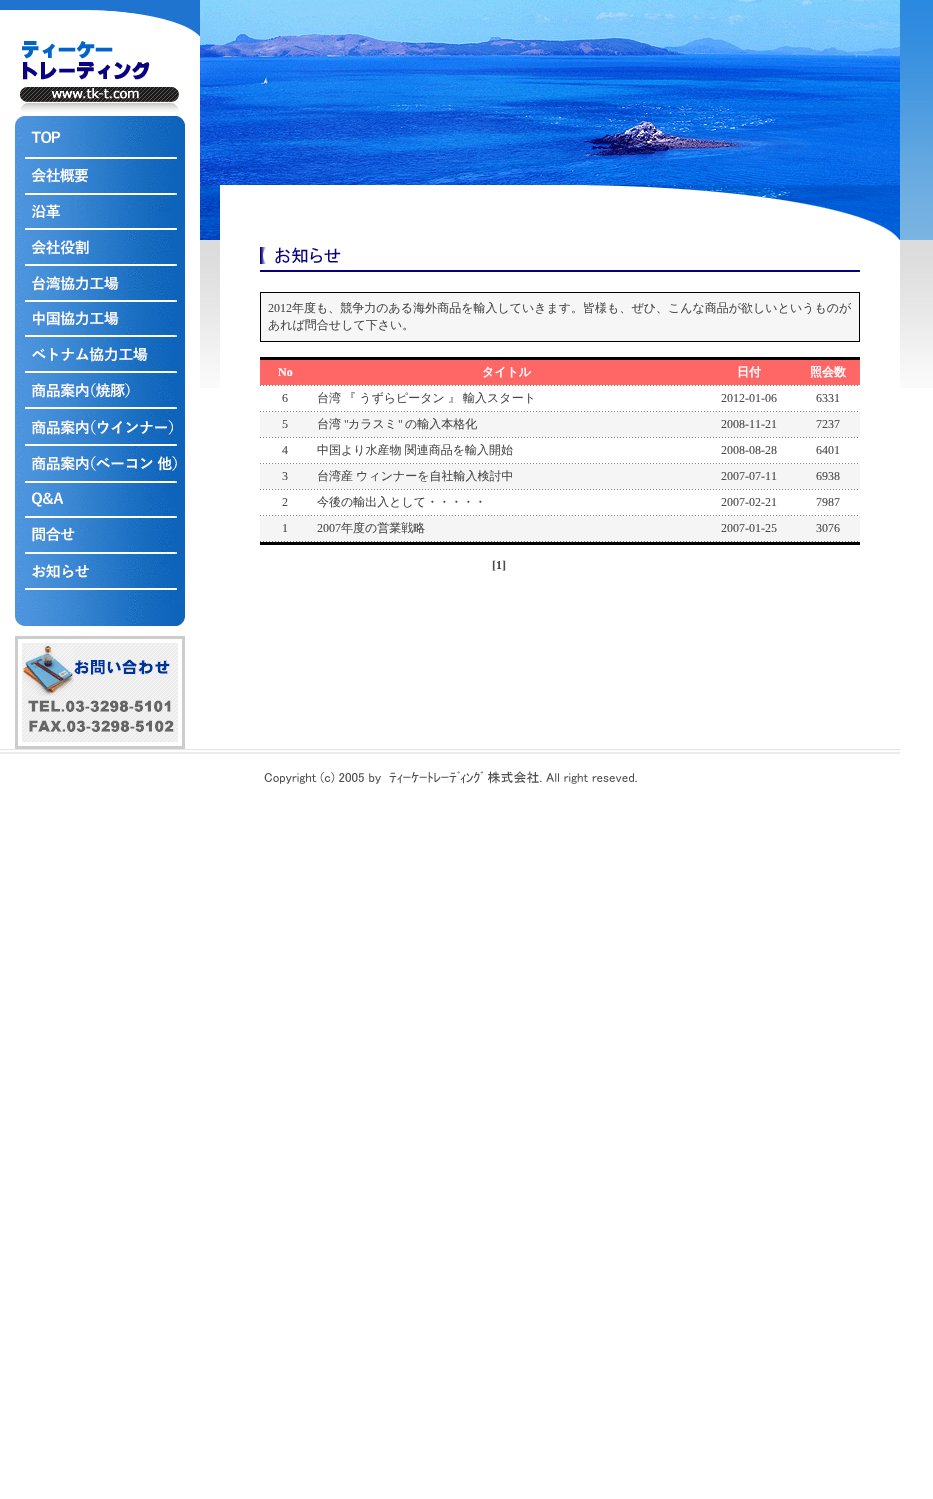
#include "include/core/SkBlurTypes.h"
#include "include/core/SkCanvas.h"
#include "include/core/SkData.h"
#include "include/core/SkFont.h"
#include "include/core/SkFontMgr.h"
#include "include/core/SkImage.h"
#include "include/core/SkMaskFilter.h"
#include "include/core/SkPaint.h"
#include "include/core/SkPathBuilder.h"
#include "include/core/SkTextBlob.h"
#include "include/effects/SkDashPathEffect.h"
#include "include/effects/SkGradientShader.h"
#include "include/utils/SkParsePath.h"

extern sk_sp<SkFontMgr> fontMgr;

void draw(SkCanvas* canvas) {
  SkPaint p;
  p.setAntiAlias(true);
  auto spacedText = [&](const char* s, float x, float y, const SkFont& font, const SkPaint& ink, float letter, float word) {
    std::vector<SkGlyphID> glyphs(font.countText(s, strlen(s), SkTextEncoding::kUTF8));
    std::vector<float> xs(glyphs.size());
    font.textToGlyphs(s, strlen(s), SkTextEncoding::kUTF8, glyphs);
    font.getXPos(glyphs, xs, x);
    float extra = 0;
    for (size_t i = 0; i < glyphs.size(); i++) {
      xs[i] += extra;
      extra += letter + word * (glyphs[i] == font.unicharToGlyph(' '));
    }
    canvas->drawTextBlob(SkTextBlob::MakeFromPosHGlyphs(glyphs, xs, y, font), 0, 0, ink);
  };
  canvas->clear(SK_ColorWHITE);
  canvas->drawImageRect(SkImages::DeferredFromEncodedData(SkData::MakeFromFileName("images/1.png")), SkRect::MakeLTRB(200, 0, 933, 388), SkSamplingOptions());
  canvas->drawImageRect(SkImages::DeferredFromEncodedData(SkData::MakeFromFileName("images/2.png")), SkRect::MakeLTRB(0, 0, 200, 36), SkSamplingOptions());
  canvas->drawImageRect(SkImages::DeferredFromEncodedData(SkData::MakeFromFileName("images/3.png")), SkRect::MakeLTRB(20, 41, 179, 112), SkSamplingOptions());
  canvas->drawImageRect(SkImages::DeferredFromEncodedData(SkData::MakeFromFileName("images/4.png")), SkRect::MakeLTRB(15, 116, 185, 626), SkSamplingOptions());
  canvas->drawImageRect(SkImages::DeferredFromEncodedData(SkData::MakeFromFileName("images/5.png")), SkRect::MakeLTRB(15, 636, 185, 749), SkSamplingOptions());
  canvas->drawImageRect(SkImages::DeferredFromEncodedData(SkData::MakeFromFileName("images/6.png")), SkRect::MakeLTRB(200, 0, 900, 185), SkSamplingOptions());
  canvas->drawImageRect(SkImages::DeferredFromEncodedData(SkData::MakeFromFileName("images/7.png")), SkRect::MakeLTRB(200, 185, 900, 240), SkSamplingOptions());
  p.setColor(SK_ColorWHITE);
  canvas->drawRect(SkRect::MakeLTRB(220, 240, 900, 388), p);
  canvas->drawImageRect(SkImages::DeferredFromEncodedData(SkData::MakeFromFileName("images/8.png")), SkRect::MakeLTRB(260, 247, 341, 264), SkSamplingOptions());
  p.setColor(SkColorSetRGB(9, 0, 127));
  canvas->drawRect(SkRect::MakeLTRB(260, 270, 860, 272), p);
  p.setColor(SK_ColorBLACK);
  canvas->drawRect(SkRect::MakeLTRB(260, 292, 860, 342), p);
  p.setColor(SkColorSetRGB(246, 246, 246));
  canvas->drawRect(SkRect::MakeLTRB(261, 293, 859, 341), p);
  p.setColor(SK_ColorBLACK);
  canvas->drawRect(SkRect::MakeLTRB(260, 357, 860, 360), p);
  p.setColor(SkColorSetRGB(255, 102, 102));
  canvas->drawRect(SkRect::MakeLTRB(260, 360, 860, 385), p);
  canvas->drawImageRect(SkImages::DeferredFromEncodedData(SkData::MakeFromFileName("images/9.png")), SkRect::MakeLTRB(260, 385, 858, 386), SkSamplingOptions());
  canvas->drawImageRect(SkImages::DeferredFromEncodedData(SkData::MakeFromFileName("images/9.png")), SkRect::MakeLTRB(260, 411, 858, 412), SkSamplingOptions());
  p.setColor(SkColorSetRGB(246, 245, 245));
  canvas->drawRect(SkRect::MakeLTRB(260, 412, 860, 437), p);
  canvas->drawImageRect(SkImages::DeferredFromEncodedData(SkData::MakeFromFileName("images/9.png")), SkRect::MakeLTRB(260, 437, 858, 438), SkSamplingOptions());
  canvas->drawImageRect(SkImages::DeferredFromEncodedData(SkData::MakeFromFileName("images/9.png")), SkRect::MakeLTRB(260, 463, 858, 464), SkSamplingOptions());
  canvas->drawRect(SkRect::MakeLTRB(260, 464, 860, 489), p);
  canvas->drawImageRect(SkImages::DeferredFromEncodedData(SkData::MakeFromFileName("images/9.png")), SkRect::MakeLTRB(260, 489, 858, 490), SkSamplingOptions());
  canvas->drawImageRect(SkImages::DeferredFromEncodedData(SkData::MakeFromFileName("images/9.png")), SkRect::MakeLTRB(260, 515, 858, 516), SkSamplingOptions());
  canvas->drawRect(SkRect::MakeLTRB(260, 516, 860, 541), p);
  canvas->drawImageRect(SkImages::DeferredFromEncodedData(SkData::MakeFromFileName("images/9.png")), SkRect::MakeLTRB(260, 541, 858, 542), SkSamplingOptions());
  p.setColor(SK_ColorBLACK);
  canvas->drawRect(SkRect::MakeLTRB(260, 542, 860, 545), p);
  canvas->drawImageRect(SkImages::DeferredFromEncodedData(SkData::MakeFromFileName("images/10.png")), SkRect::MakeLTRB(0, 749, 900, 754), SkSamplingOptions());
  canvas->drawImageRect(SkImages::DeferredFromEncodedData(SkData::MakeFromFileName("images/11.png")), SkRect::MakeLTRB(264, 771, 637, 784), SkSamplingOptions());
  SkFont font1(fontMgr->matchFamilyStyle("Liberation Serif", SkFontStyle::Normal()), 12);
  font1.setSubpixel(true);
  p.setColor(SkColorSetRGB(74, 74, 74));
  canvas->drawString("2012", 268, 312, font1, p);
  SkFont font2(fontMgr->matchFamilyStyle("WenQuanYi Zen Hei", SkFontStyle(500, SkFontStyle::kNormal_Width, SkFontStyle::kUpright_Slant)), 12);
  font2.setSubpixel(true);
  canvas->drawString("年度も、競争力のある海外商品を輸入していきます。皆様も、ぜひ、こんな商品が欲しいというものが", 292, 312, font2, p);
  canvas->drawString("あれば問合せして下さい。", 268, 329, font2, p);
  SkFont font3(fontMgr->matchFamilyStyle("Liberation Serif", SkFontStyle::Bold()), 12);
  font3.setSubpixel(true);
  p.setColor(SK_ColorWHITE);
  canvas->drawString("No", 278, 376, font3, p);
  SkFont font4(fontMgr->matchFamilyStyle("WenQuanYi Zen Hei", SkFontStyle::Bold()), 12);
  font4.setSubpixel(true);
  canvas->drawString("タイトル", 482, 376, font4, p);
  canvas->drawString("日付", 737, 376, font4, p);
  canvas->drawString("照会数", 810, 376, font4, p);
  p.setColor(SkColorSetRGB(74, 74, 74));
  canvas->drawString("6", 282, 402, font1, p);
  spacedText("台湾 『 うずらピータン 』 輸入スタート", 317, 402, font2, p, 0, -0.5f);
  canvas->drawString("2012-01-06", 721, 402, font1, p);
  canvas->drawString("6331", 816, 402, font1, p);
  canvas->drawString("5", 282, 428, font1, p);
  canvas->drawString("台湾", 317, 428, font2, p);
  canvas->drawString("\"", 344, 428, font1, p);
  canvas->drawString("カラスミ", 348, 428, font2, p);
  canvas->drawString("\"", 398, 428, font1, p);
  canvas->drawString("の輸入本格化", 405, 428, font2, p);
  canvas->drawString("2008-11-21", 721, 428, font1, p);
  canvas->drawString("7237", 816, 428, font1, p);
  canvas->drawString("4", 282, 454, font1, p);
  spacedText("中国より水産物 関連商品を輸入開始", 317, 454, font2, p, 0, -0.5f);
  canvas->drawString("2008-08-28", 721, 454, font1, p);
  canvas->drawString("6401", 816, 454, font1, p);
  canvas->drawString("3", 282, 480, font1, p);
  spacedText("台湾産 ウィンナーを自社輸入検討中", 317, 480, font2, p, 0, -0.5f);
  canvas->drawString("2007-07-11", 721, 480, font1, p);
  canvas->drawString("6938", 816, 480, font1, p);
  canvas->drawString("2", 282, 506, font1, p);
  canvas->drawString("今後の輸出入として・・・・・", 317, 506, font2, p);
  canvas->drawString("2007-02-21", 721, 506, font1, p);
  canvas->drawString("7987", 816, 506, font1, p);
  canvas->drawString("1", 282, 532, font1, p);
  canvas->drawString("2007", 317, 532, font1, p);
  canvas->drawString("年度の営業戦略", 341, 532, font2, p);
  canvas->drawString("2007-01-25", 721, 532, font1, p);
  canvas->drawString("3076", 816, 532, font1, p);
  canvas->drawString("[1]", 492, 569, font3, p);
}
